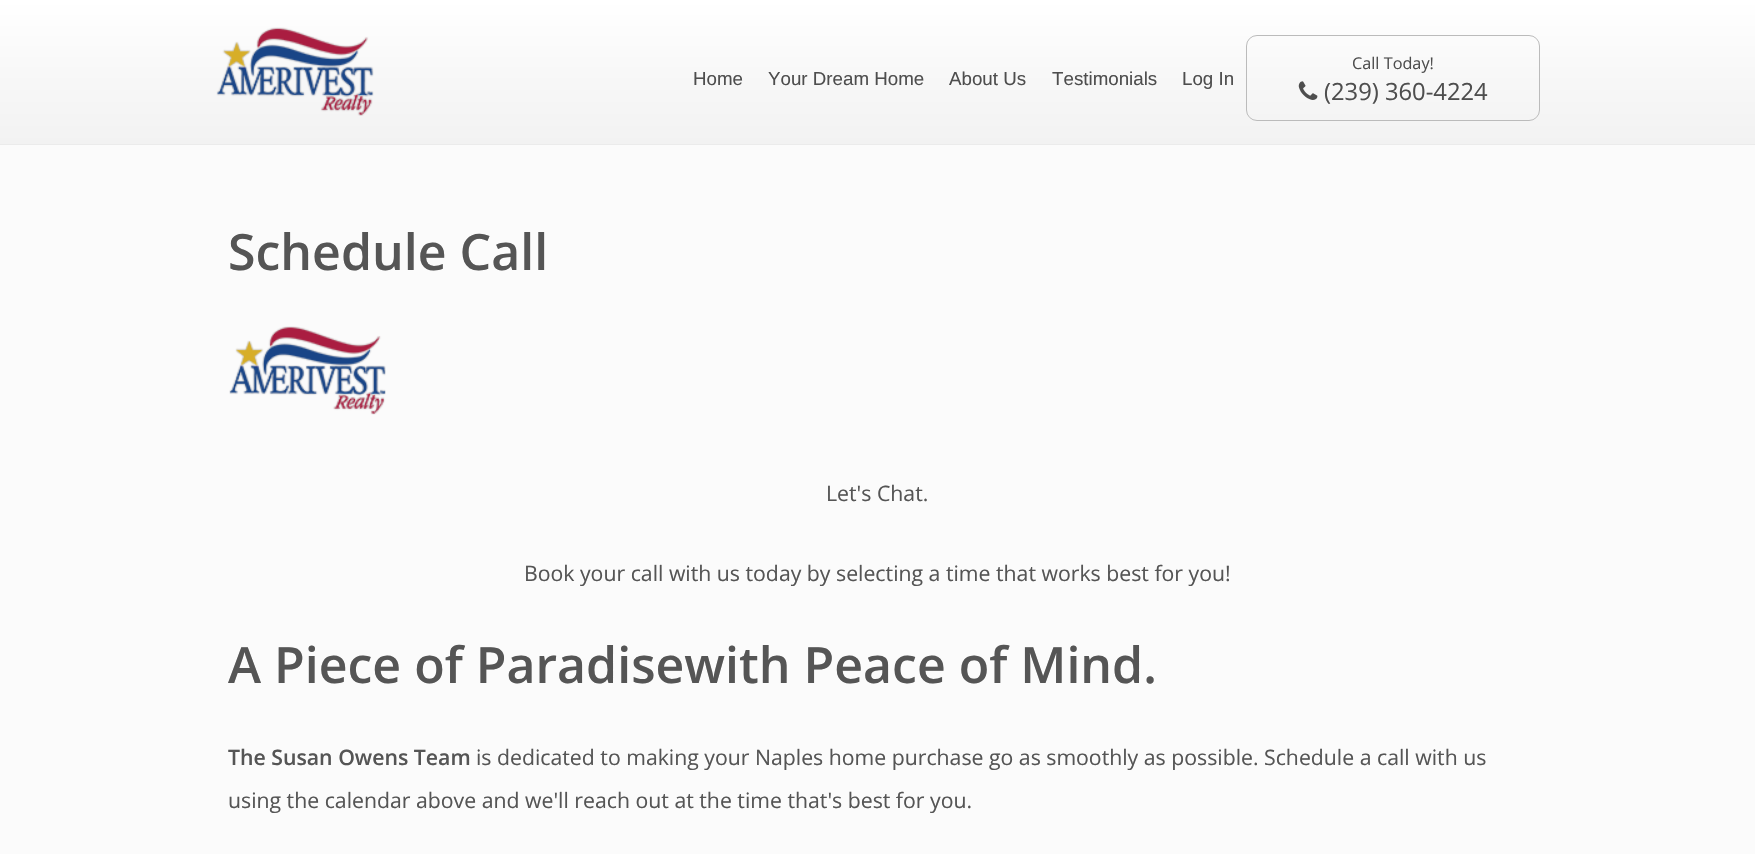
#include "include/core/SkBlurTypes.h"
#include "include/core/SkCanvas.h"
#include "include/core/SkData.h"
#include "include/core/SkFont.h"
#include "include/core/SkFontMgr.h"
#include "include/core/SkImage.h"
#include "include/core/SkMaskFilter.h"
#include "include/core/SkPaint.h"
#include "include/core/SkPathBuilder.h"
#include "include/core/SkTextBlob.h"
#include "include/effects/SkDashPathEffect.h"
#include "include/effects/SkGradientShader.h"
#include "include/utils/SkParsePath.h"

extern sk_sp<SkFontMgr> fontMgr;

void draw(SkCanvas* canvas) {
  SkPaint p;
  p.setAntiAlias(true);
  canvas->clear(SkColorSetRGB(251, 251, 251));
  {
    const SkColor colors[] = {SK_ColorWHITE, SkColorSetRGB(248, 248, 248), SkColorSetRGB(242, 242, 242)};
    const float stops[] = {0, 0.5f, 1};
    const SkPoint ends[] = {{878, 0}, {878, 144}};
    p.setShader(SkGradientShader::MakeLinear(ends, colors, stops, 3, SkTileMode::kClamp));
    p.setAlpha(255);
  }
  canvas->drawRect(SkRect::MakeLTRB(0, 0, 1755, 144), p);
  p.setShader(nullptr);
  p.setColor(SkColorSetRGB(235, 235, 235));
  canvas->drawRect(SkRect::MakeLTRB(0, 144, 1755, 145), p);
  canvas->drawImageRect(SkImages::DeferredFromEncodedData(SkData::MakeFromFileName("images/1.png")), SkRect::MakeLTRB(216, 27, 374, 116), SkSamplingOptions());
  p.setStyle(SkPaint::kStroke_Style);
  p.setStrokeWidth(1);
  p.setColor(SkColorSetRGB(187, 187, 187));
  canvas->drawRoundRect(SkRect::MakeLTRB(1246.5f, 35.5f, 1539.5f, 120.5f), 10.5f, 10.5f, p);
  canvas->drawImageRect(SkImages::DeferredFromEncodedData(SkData::MakeFromFileName("images/2.png")), SkRect::MakeLTRB(1298, 81, 1318, 100), SkSamplingOptions());
  canvas->drawImageRect(SkImages::DeferredFromEncodedData(SkData::MakeFromFileName("images/3.png")), SkRect::MakeLTRB(229, 326, 386, 415), SkSamplingOptions());
  SkFont font1(fontMgr->matchFamilyStyle("Liberation Sans", SkFontStyle::Normal()), 18.75f);
  font1.setSubpixel(true);
  p.setStyle(SkPaint::kFill_Style);
  p.setColor(SkColorSetRGB(78, 78, 78));
  canvas->drawString("Home", 693, 85, font1, p);
  canvas->drawString("Your Dream Home", 768, 85, font1, p);
  canvas->drawString("About Us", 949, 85, font1, p);
  canvas->drawString("Testimonials", 1052, 85, font1, p);
  canvas->drawString("Log In", 1182, 85, font1, p);
  SkFont font2(fontMgr->matchFamilyStyle("Open Sans", SkFontStyle::Normal()), 16.25f);
  font2.setSubpixel(true);
  canvas->drawString("Call Today!", 1352, 69, font2, p);
  SkFont font3(fontMgr->matchFamilyStyle("Open Sans", SkFontStyle::Normal()), 23.75f);
  font3.setSubpixel(true);
  canvas->drawString("(239) 360-4224", 1324, 100, font3, p);
  SkFont font4(fontMgr->matchFamilyStyle("Open Sans", SkFontStyle(600, SkFontStyle::kNormal_Width, SkFontStyle::kUpright_Slant)), 50);
  font4.setSubpixel(true);
  p.setColor(SkColorSetRGB(85, 85, 85));
  canvas->drawString("Schedule Call", 228, 270, font4, p);
  SkFont font5(fontMgr->matchFamilyStyle("Open Sans", SkFontStyle::Normal()), 21.25f);
  font5.setSubpixel(true);
  canvas->drawString("Let's Chat.", 826, 501, font5, p);
  canvas->drawString("Book your call with us today by selecting a time that works best for you!", 524, 581, font5, p);
  canvas->drawString("A Piece of Paradisewith Peace of Mind.", 228, 683, font4, p);
  SkFont font6(fontMgr->matchFamilyStyle("Open Sans", SkFontStyle(600, SkFontStyle::kNormal_Width, SkFontStyle::kUpright_Slant)), 21.25f);
  font6.setSubpixel(true);
  canvas->drawString("The Susan Owens Team", 228, 765, font6, p);
  canvas->drawString("is dedicated to making your Naples home purchase go as smoothly as possible. Schedule a call with us", 476, 765, font5, p);
  canvas->drawString("using the calendar above and we'll reach out at the time that's best for you.", 228, 808, font5, p);
}
